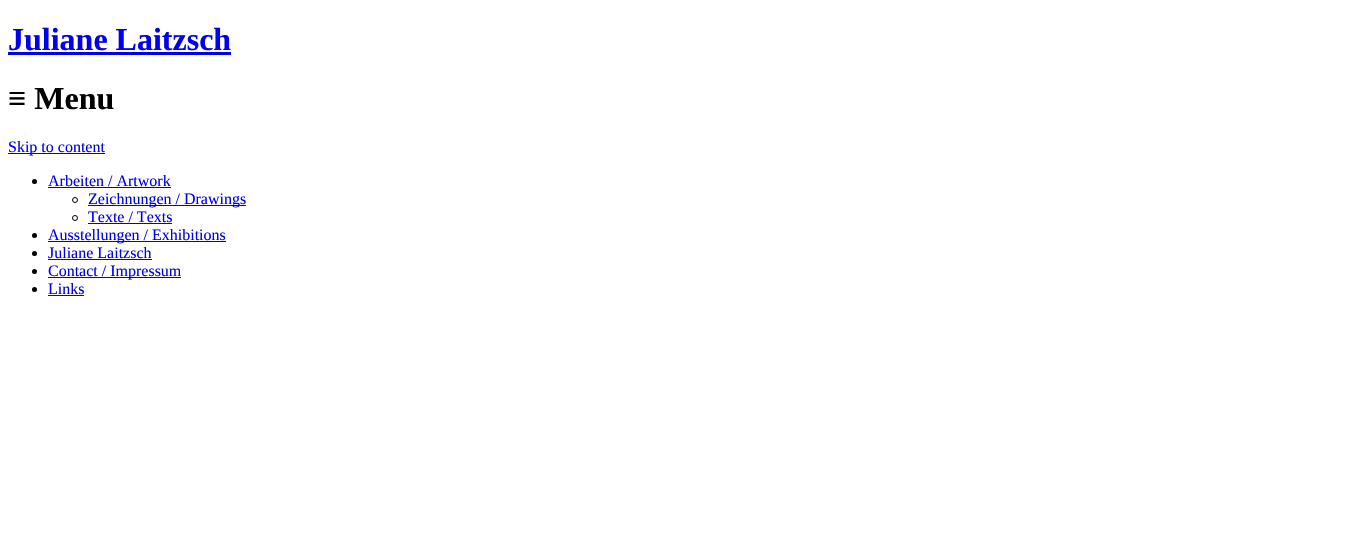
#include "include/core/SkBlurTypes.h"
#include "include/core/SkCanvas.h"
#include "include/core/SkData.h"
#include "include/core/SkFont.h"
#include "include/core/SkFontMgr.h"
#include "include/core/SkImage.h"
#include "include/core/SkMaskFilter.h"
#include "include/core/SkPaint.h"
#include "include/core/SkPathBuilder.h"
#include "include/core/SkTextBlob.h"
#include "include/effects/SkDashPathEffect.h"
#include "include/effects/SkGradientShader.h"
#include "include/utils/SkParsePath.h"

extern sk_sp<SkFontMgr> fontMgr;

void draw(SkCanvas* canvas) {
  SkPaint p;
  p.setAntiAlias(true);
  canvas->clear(SK_ColorWHITE);
  p.setColor(SkColorSetRGB(0, 0, 238));
  canvas->drawRect(SkRect::MakeLTRB(8, 52, 231, 55), p);
  canvas->drawRect(SkRect::MakeLTRB(8, 153, 105, 154), p);
  p.setColor(SK_ColorBLACK);
  canvas->drawCircle(34.5f, 181.5f, 2.5f, p);
  p.setColor(SkColorSetRGB(0, 0, 238));
  canvas->drawRect(SkRect::MakeLTRB(48, 187, 171, 188), p);
  p.setStyle(SkPaint::kStroke_Style);
  p.setStrokeWidth(1);
  p.setColor(SK_ColorBLACK);
  canvas->drawCircle(75, 200, 2.5f, p);
  p.setStyle(SkPaint::kFill_Style);
  p.setColor(SkColorSetRGB(0, 0, 238));
  canvas->drawRect(SkRect::MakeLTRB(88, 205, 246, 206), p);
  p.setStyle(SkPaint::kStroke_Style);
  p.setColor(SK_ColorBLACK);
  canvas->drawCircle(75, 218, 2.5f, p);
  p.setStyle(SkPaint::kFill_Style);
  p.setColor(SkColorSetRGB(0, 0, 238));
  canvas->drawRect(SkRect::MakeLTRB(88, 223, 172, 224), p);
  p.setColor(SK_ColorBLACK);
  canvas->drawCircle(34.5f, 235.5f, 2.5f, p);
  p.setColor(SkColorSetRGB(0, 0, 238));
  canvas->drawRect(SkRect::MakeLTRB(48, 241, 226, 242), p);
  p.setColor(SK_ColorBLACK);
  canvas->drawCircle(34.5f, 253.5f, 2.5f, p);
  p.setColor(SkColorSetRGB(0, 0, 238));
  canvas->drawRect(SkRect::MakeLTRB(48, 259, 152, 260), p);
  p.setColor(SK_ColorBLACK);
  canvas->drawCircle(34.5f, 271.5f, 2.5f, p);
  p.setColor(SkColorSetRGB(0, 0, 238));
  canvas->drawRect(SkRect::MakeLTRB(48, 277, 181, 278), p);
  p.setColor(SK_ColorBLACK);
  canvas->drawCircle(34.5f, 289.5f, 2.5f, p);
  p.setColor(SkColorSetRGB(0, 0, 238));
  canvas->drawRect(SkRect::MakeLTRB(48, 295, 84, 296), p);
  SkFont font1(fontMgr->matchFamilyStyle("Liberation Serif", SkFontStyle::Bold()), 32);
  font1.setSubpixel(true);
  canvas->drawString("Juliane Laitzsch", 8, 50, font1, p);
  p.setColor(SK_ColorBLACK);
  canvas->drawString("≡ Menu", 8, 109, font1, p);
  SkFont font2(fontMgr->matchFamilyStyle("Liberation Serif", SkFontStyle::Normal()), 16);
  font2.setSubpixel(true);
  p.setColor(SkColorSetRGB(0, 0, 238));
  canvas->drawString("Skip to content", 8, 152, font2, p);
  canvas->drawString("Arbeiten / Artwork", 48, 186, font2, p);
  canvas->drawString("Zeichnungen / Drawings", 88, 204, font2, p);
  canvas->drawString("Texte / Texts", 88, 222, font2, p);
  canvas->drawString("Ausstellungen / Exhibitions", 48, 240, font2, p);
  canvas->drawString("Juliane Laitzsch", 48, 258, font2, p);
  canvas->drawString("Contact / Impressum", 48, 276, font2, p);
  canvas->drawString("Links", 48, 294, font2, p);
}
